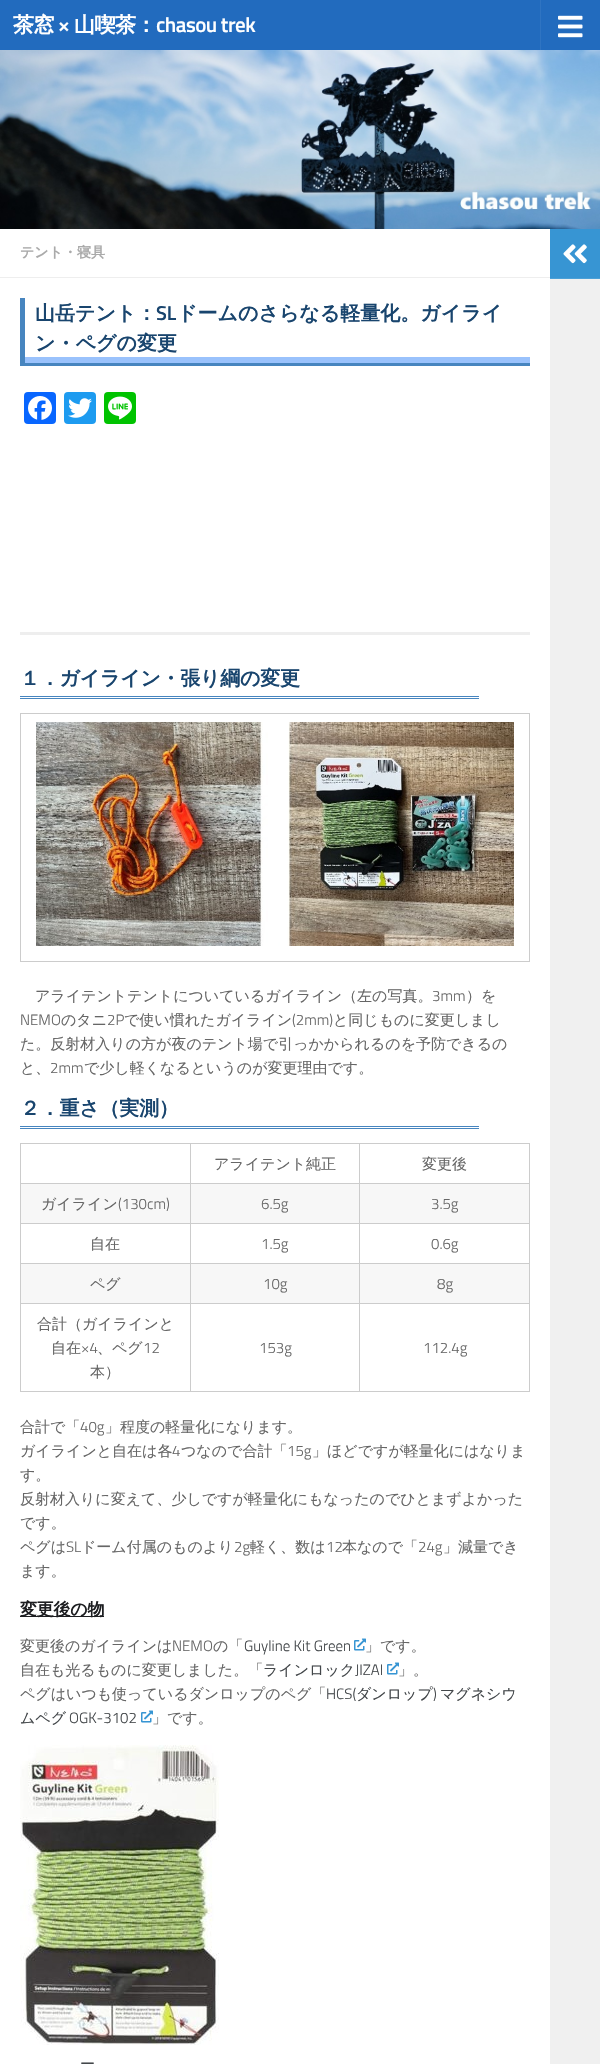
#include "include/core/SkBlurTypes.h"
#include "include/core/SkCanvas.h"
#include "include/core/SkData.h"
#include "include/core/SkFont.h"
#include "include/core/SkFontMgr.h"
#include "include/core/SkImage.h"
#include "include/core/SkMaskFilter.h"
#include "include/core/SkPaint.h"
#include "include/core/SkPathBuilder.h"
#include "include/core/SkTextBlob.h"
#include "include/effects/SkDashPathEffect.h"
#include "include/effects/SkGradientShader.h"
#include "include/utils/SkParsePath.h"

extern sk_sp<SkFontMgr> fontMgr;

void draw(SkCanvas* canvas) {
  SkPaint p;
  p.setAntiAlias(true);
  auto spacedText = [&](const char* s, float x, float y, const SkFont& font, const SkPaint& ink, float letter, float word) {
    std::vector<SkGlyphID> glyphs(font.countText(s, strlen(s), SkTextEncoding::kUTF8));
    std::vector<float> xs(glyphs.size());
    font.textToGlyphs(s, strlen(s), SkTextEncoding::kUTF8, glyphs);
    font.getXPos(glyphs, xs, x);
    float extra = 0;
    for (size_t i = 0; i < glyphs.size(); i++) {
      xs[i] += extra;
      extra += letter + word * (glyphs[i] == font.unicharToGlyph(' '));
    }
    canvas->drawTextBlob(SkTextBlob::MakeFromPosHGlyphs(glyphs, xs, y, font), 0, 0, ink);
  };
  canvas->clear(SK_ColorWHITE);
  p.setColor(SkColorSetRGB(34, 107, 190));
  canvas->drawRect(SkRect::MakeLTRB(0, 0, 600, 50), p);
  p.setColor(SkColorSetRGB(47, 116, 194));
  canvas->drawRect(SkRect::MakeLTRB(540, 0, 541, 50), p);
  canvas->drawImageRect(SkImages::DeferredFromEncodedData(SkData::MakeFromFileName("images/1.png")), SkRect::MakeLTRB(558, 15, 583, 38), SkSamplingOptions());
  canvas->drawImageRect(SkImages::DeferredFromEncodedData(SkData::MakeFromFileName("images/2.png")), SkRect::MakeLTRB(0, 50, 600, 229), SkSamplingOptions());
  p.setColor(SkColorSetRGB(238, 238, 238));
  canvas->drawRect(SkRect::MakeLTRB(0, 277, 550, 278), p);
  p.setColor(SkColorSetRGB(154, 194, 252));
  canvas->drawRect(SkRect::MakeLTRB(20, 357, 530, 363), p);
  p.setColor(SkColorSetRGB(71, 133, 191));
  canvas->drawRect(SkRect::MakeLTRB(20, 363, 530, 366), p);
  canvas->drawRect(SkRect::MakeLTRB(20, 298, 25, 366), p);
  p.setColor(SkColorSetRGB(8, 102, 255));
  canvas->drawRoundRect(SkRect::MakeLTRB(24, 392, 56, 424), 4, 4, p);
  canvas->drawImageRect(SkImages::DeferredFromEncodedData(SkData::MakeFromFileName("images/3.png")), SkRect::MakeLTRB(28, 396, 52, 420), SkSamplingOptions());
  p.setColor(SkColorSetRGB(29, 155, 240));
  canvas->drawRoundRect(SkRect::MakeLTRB(64, 392, 96, 424), 4, 4, p);
  canvas->drawImageRect(SkImages::DeferredFromEncodedData(SkData::MakeFromFileName("images/4.png")), SkRect::MakeLTRB(68, 398, 92, 418), SkSamplingOptions());
  p.setColor(SkColorSetRGB(0, 195, 0));
  canvas->drawRoundRect(SkRect::MakeLTRB(104, 392, 136, 424), 4, 4, p);
  canvas->drawImageRect(SkImages::DeferredFromEncodedData(SkData::MakeFromFileName("images/5.png")), SkRect::MakeLTRB(108, 396, 132, 420), SkSamplingOptions());
  p.setColor(SkColorSetRGB(238, 238, 238));
  canvas->drawRect(SkRect::MakeLTRB(20, 632, 530, 635), p);
  p.setColor(SkColorSetRGB(71, 133, 191));
  canvas->drawRect(SkRect::MakeLTRB(20, 696, 479, 697), p);
  canvas->drawRect(SkRect::MakeLTRB(20, 698, 479, 699), p);
  p.setColor(SkColorSetRGB(204, 204, 204));
  canvas->drawRect(SkRect::MakeLTRB(20, 713, 530, 714), p);
  canvas->drawRect(SkRect::MakeLTRB(529, 713, 530, 962), p);
  canvas->drawRect(SkRect::MakeLTRB(20, 961, 530, 962), p);
  canvas->drawRect(SkRect::MakeLTRB(20, 713, 21, 962), p);
  canvas->drawImageRect(SkImages::DeferredFromEncodedData(SkData::MakeFromFileName("images/6.png")), SkRect::MakeLTRB(36, 722, 514, 946), SkSamplingOptions());
  p.setColor(SkColorSetRGB(71, 133, 191));
  canvas->drawRect(SkRect::MakeLTRB(20, 1126, 479, 1127), p);
  canvas->drawRect(SkRect::MakeLTRB(20, 1128, 479, 1129), p);
  p.setColor(SkColorSetRGB(204, 204, 204));
  canvas->drawRect(SkRect::MakeLTRB(20, 1143, 530, 1144), p);
  canvas->drawRect(SkRect::MakeLTRB(529, 1143, 530, 1392), p);
  canvas->drawRect(SkRect::MakeLTRB(20, 1391, 530, 1392), p);
  canvas->drawRect(SkRect::MakeLTRB(20, 1143, 21, 1392), p);
  canvas->drawRect(SkRect::MakeLTRB(359, 1183, 530, 1184), p);
  canvas->drawRect(SkRect::MakeLTRB(359, 1223, 530, 1224), p);
  canvas->drawRect(SkRect::MakeLTRB(359, 1263, 530, 1264), p);
  canvas->drawRect(SkRect::MakeLTRB(359, 1303, 530, 1304), p);
  canvas->drawRect(SkRect::MakeLTRB(359, 1303, 360, 1392), p);
  canvas->drawRect(SkRect::MakeLTRB(190, 1303, 360, 1304), p);
  canvas->drawRect(SkRect::MakeLTRB(359, 1263, 360, 1304), p);
  canvas->drawRect(SkRect::MakeLTRB(190, 1263, 360, 1264), p);
  canvas->drawRect(SkRect::MakeLTRB(359, 1223, 360, 1264), p);
  canvas->drawRect(SkRect::MakeLTRB(190, 1223, 360, 1224), p);
  canvas->drawRect(SkRect::MakeLTRB(359, 1183, 360, 1224), p);
  canvas->drawRect(SkRect::MakeLTRB(190, 1183, 360, 1184), p);
  canvas->drawRect(SkRect::MakeLTRB(190, 1303, 191, 1392), p);
  canvas->drawRect(SkRect::MakeLTRB(20, 1303, 191, 1304), p);
  canvas->drawRect(SkRect::MakeLTRB(190, 1263, 191, 1304), p);
  canvas->drawRect(SkRect::MakeLTRB(20, 1263, 191, 1264), p);
  canvas->drawRect(SkRect::MakeLTRB(190, 1223, 191, 1264), p);
  canvas->drawRect(SkRect::MakeLTRB(20, 1223, 191, 1224), p);
  canvas->drawRect(SkRect::MakeLTRB(190, 1183, 191, 1224), p);
  canvas->drawRect(SkRect::MakeLTRB(20, 1183, 191, 1184), p);
  canvas->drawRect(SkRect::MakeLTRB(190, 1143, 191, 1184), p);
  canvas->drawRect(SkRect::MakeLTRB(359, 1143, 360, 1184), p);
  p.setColor(SkColorSetRGB(247, 247, 247));
  canvas->drawRect(SkRect::MakeLTRB(21, 1184, 190, 1223), p);
  canvas->drawRect(SkRect::MakeLTRB(191, 1184, 359, 1223), p);
  canvas->drawRect(SkRect::MakeLTRB(360, 1184, 529, 1223), p);
  canvas->drawRect(SkRect::MakeLTRB(21, 1264, 190, 1303), p);
  canvas->drawRect(SkRect::MakeLTRB(191, 1264, 359, 1303), p);
  canvas->drawRect(SkRect::MakeLTRB(360, 1264, 529, 1303), p);
  p.setColor(SkColorSetRGB(29, 30, 33));
  canvas->drawRect(SkRect::MakeLTRB(20, 1616, 104, 1617), p);
  canvas->drawImageRect(SkImages::DeferredFromEncodedData(SkData::MakeFromFileName("images/7.png")), SkRect::MakeLTRB(354, 1638, 366, 1651), SkSamplingOptions());
  canvas->drawImageRect(SkImages::DeferredFromEncodedData(SkData::MakeFromFileName("images/7.png")), SkRect::MakeLTRB(387, 1662, 399, 1675), SkSamplingOptions());
  canvas->drawImageRect(SkImages::DeferredFromEncodedData(SkData::MakeFromFileName("images/7.png")), SkRect::MakeLTRB(141, 1710, 153, 1723), SkSamplingOptions());
  canvas->drawImageRect(SkImages::DeferredFromEncodedData(SkData::MakeFromFileName("images/8.png")), SkRect::MakeLTRB(20, 1745, 219, 2045), SkSamplingOptions());
  p.setColor(SkColorSetRGB(55, 149, 211));
  canvas->drawRect(SkRect::MakeLTRB(550, 229, 600, 278), p);
  p.setColor(SkColorSetRGB(75, 160, 215));
  canvas->drawRect(SkRect::MakeLTRB(550, 278, 600, 279), p);
  canvas->drawImageRect(SkImages::DeferredFromEncodedData(SkData::MakeFromFileName("images/9.png")), SkRect::MakeLTRB(563, 244, 587, 264), SkSamplingOptions());
  p.setColor(SkColorSetRGB(240, 240, 240));
  canvas->drawRect(SkRect::MakeLTRB(550, 279, 600, 2064), p);
  SkFont font1(fontMgr->matchFamilyStyle("WenQuanYi Zen Hei", SkFontStyle::Bold()), 21);
  font1.setSubpixel(true);
  p.setColor(SK_ColorWHITE);
  spacedText("茶窓", 13, 32, font1, p, -0.5f, 0);
  SkFont font2(fontMgr->matchFamilyStyle("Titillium", SkFontStyle(600, SkFontStyle::kNormal_Width, SkFontStyle::kUpright_Slant)), 21);
  font2.setSubpixel(true);
  spacedText("×", 58, 32, font2, p, -0.5f, 0);
  spacedText("山喫茶：", 74, 32, font1, p, -0.5f, 0);
  spacedText("chasou trek", 156, 32, font2, p, -0.5f, 0);
  SkFont font3(fontMgr->matchFamilyStyle("WenQuanYi Zen Hei", SkFontStyle::Bold()), 14);
  font3.setSubpixel(true);
  p.setColor(SkColorSetRGB(170, 170, 170));
  canvas->drawString("テント・寝具", 20, 257, font3, p);
  SkFont font4(fontMgr->matchFamilyStyle("WenQuanYi Zen Hei", SkFontStyle::Bold()), 20);
  font4.setSubpixel(true);
  p.setColor(SkColorSetRGB(25, 69, 110));
  canvas->drawString("山岳テント：", 35, 320, font4, p);
  SkFont font5(fontMgr->matchFamilyStyle("Titillium", SkFontStyle(600, SkFontStyle::kNormal_Width, SkFontStyle::kUpright_Slant)), 20);
  font5.setSubpixel(true);
  canvas->drawString("SL", 156, 320, font5, p);
  canvas->drawString("ドームのさらなる軽量化。ガイライ", 177, 320, font4, p);
  canvas->drawString("ン・ペグの変更", 35, 350, font4, p);
  spacedText("１．ガイライン・張り綱の変更", 20, 685, font4, p, -0.25f, 0);
  SkFont font6(fontMgr->matchFamilyStyle("WenQuanYi Zen Hei", SkFontStyle(500, SkFontStyle::kNormal_Width, SkFontStyle::kUpright_Slant)), 15);
  font6.setSubpixel(true);
  p.setColor(SkColorSetRGB(102, 102, 102));
  canvas->drawString("アライテントテントについているガイライン（左の写真。", 35, 1001, font6, p);
  SkFont font7(fontMgr->matchFamilyStyle("Titillium", SkFontStyle(300, SkFontStyle::kNormal_Width, SkFontStyle::kUpright_Slant)), 15);
  font7.setSubpixel(true);
  canvas->drawString("3mm", 432, 1001, font7, p);
  canvas->drawString("）を", 466, 1001, font6, p);
  canvas->drawString("NEMO", 20, 1025, font7, p);
  canvas->drawString("のタニ", 61, 1025, font6, p);
  canvas->drawString("2P", 107, 1025, font7, p);
  canvas->drawString("で使い慣れたガイライン", 124, 1025, font6, p);
  canvas->drawString("(2mm)", 292, 1025, font7, p);
  canvas->drawString("と同じものに変更しまし", 333, 1025, font6, p);
  canvas->drawString("た。反射材入りの方が夜のテント場で引っかかられるのを予防できるの", 20, 1049, font6, p);
  canvas->drawString("と、", 20, 1073, font6, p);
  canvas->drawString("2mm", 50, 1073, font7, p);
  canvas->drawString("で少し軽くなるというのが変更理由です。", 84, 1073, font6, p);
  p.setColor(SkColorSetRGB(25, 69, 110));
  spacedText("２．重さ（実測）", 20, 1115, font4, p, -0.25f, 0);
  p.setColor(SkColorSetRGB(102, 102, 102));
  canvas->drawString("アライテント純正", 214, 1169, font6, p);
  canvas->drawString("変更後", 422, 1169, font6, p);
  canvas->drawString("ガイライン", 41, 1209, font6, p);
  canvas->drawString("(130cm)", 118, 1209, font7, p);
  canvas->drawString("6.5g", 261, 1209, font7, p);
  canvas->drawString("3.5g", 431, 1209, font7, p);
  canvas->drawString("自在", 90, 1249, font6, p);
  canvas->drawString("1.5g", 261, 1249, font7, p);
  canvas->drawString("0.6g", 431, 1249, font7, p);
  canvas->drawString("ペグ", 90, 1289, font6, p);
  canvas->drawString("10g", 263, 1289, font7, p);
  canvas->drawString("8g", 437, 1289, font7, p);
  canvas->drawString("合計（ガイラインと", 37, 1329, font6, p);
  canvas->drawString("自在", 51, 1353, font6, p);
  canvas->drawString("×4", 81, 1353, font7, p);
  canvas->drawString("、ペグ", 97, 1353, font6, p);
  canvas->drawString("12", 143, 1353, font7, p);
  canvas->drawString("本）", 90, 1377, font6, p);
  canvas->drawString("153g", 259, 1353, font7, p);
  canvas->drawString("112.4g", 423, 1353, font7, p);
  canvas->drawString("合計で「", 20, 1432, font6, p);
  canvas->drawString("40g", 80, 1432, font7, p);
  canvas->drawString("」程度の軽量化になります。", 105, 1432, font6, p);
  canvas->drawString("ガイラインと自在は各", 20, 1456, font6, p);
  canvas->drawString("4", 172, 1456, font7, p);
  canvas->drawString("つなので合計「", 181, 1456, font6, p);
  canvas->drawString("15g", 287, 1456, font7, p);
  canvas->drawString("」ほどですが軽量化にはなりま", 312, 1456, font6, p);
  canvas->drawString("す。", 20, 1480, font6, p);
  canvas->drawString("反射材入りに変えて、少しですが軽量化にもなったのでひとまずよかった", 20, 1504, font6, p);
  canvas->drawString("です。", 20, 1528, font6, p);
  canvas->drawString("ペグは", 20, 1552, font6, p);
  canvas->drawString("SL", 66, 1552, font7, p);
  canvas->drawString("ドーム付属のものより", 81, 1552, font6, p);
  canvas->drawString("2g", 234, 1552, font7, p);
  canvas->drawString("軽く、数は", 250, 1552, font6, p);
  canvas->drawString("12", 326, 1552, font7, p);
  canvas->drawString("本なので「", 342, 1552, font6, p);
  canvas->drawString("24g", 418, 1552, font7, p);
  canvas->drawString("」減量でき", 443, 1552, font6, p);
  canvas->drawString("ます。", 20, 1576, font6, p);
  SkFont font8(fontMgr->matchFamilyStyle("WenQuanYi Zen Hei", SkFontStyle::Bold()), 17);
  font8.setSubpixel(true);
  p.setColor(SkColorSetRGB(29, 30, 33));
  spacedText("変更後の物", 20, 1615, font8, p, -0.25f, 0);
  p.setColor(SkColorSetRGB(102, 102, 102));
  canvas->drawString("変更後のガイラインは", 20, 1651, font6, p);
  canvas->drawString("NEMO", 172, 1651, font7, p);
  canvas->drawString("の「", 213, 1651, font6, p);
  p.setColor(SkColorSetRGB(67, 71, 74));
  canvas->drawString("Guyline Kit Green", 244, 1651, font7, p);
  p.setColor(SkColorSetRGB(102, 102, 102));
  canvas->drawString("」です。", 365, 1651, font6, p);
  canvas->drawString("自在も光るものに変更しました。「", 20, 1675, font6, p);
  p.setColor(SkColorSetRGB(67, 71, 74));
  canvas->drawString("ラインロック", 263, 1675, font6, p);
  canvas->drawString("JIZAI", 355, 1675, font7, p);
  p.setColor(SkColorSetRGB(102, 102, 102));
  canvas->drawString("」。", 398, 1675, font6, p);
  canvas->drawString("ペグはいつも使っているダンロップのペグ「", 20, 1699, font6, p);
  p.setColor(SkColorSetRGB(67, 71, 74));
  canvas->drawString("HCS(", 326, 1699, font7, p);
  canvas->drawString("ダンロップ", 356, 1699, font6, p);
  canvas->drawString(")", 433, 1699, font7, p);
  canvas->drawString("マグネシウ", 440, 1699, font6, p);
  canvas->drawString("ムペグ", 20, 1723, font6, p);
  canvas->drawString("OGK-3102", 69, 1723, font7, p);
  p.setColor(SkColorSetRGB(102, 102, 102));
  canvas->drawString("」です。", 152, 1723, font6, p);
  p.setColor(SkColorSetRGB(67, 71, 74));
  canvas->drawString("ー", 80, 2069, font6, p);
}
